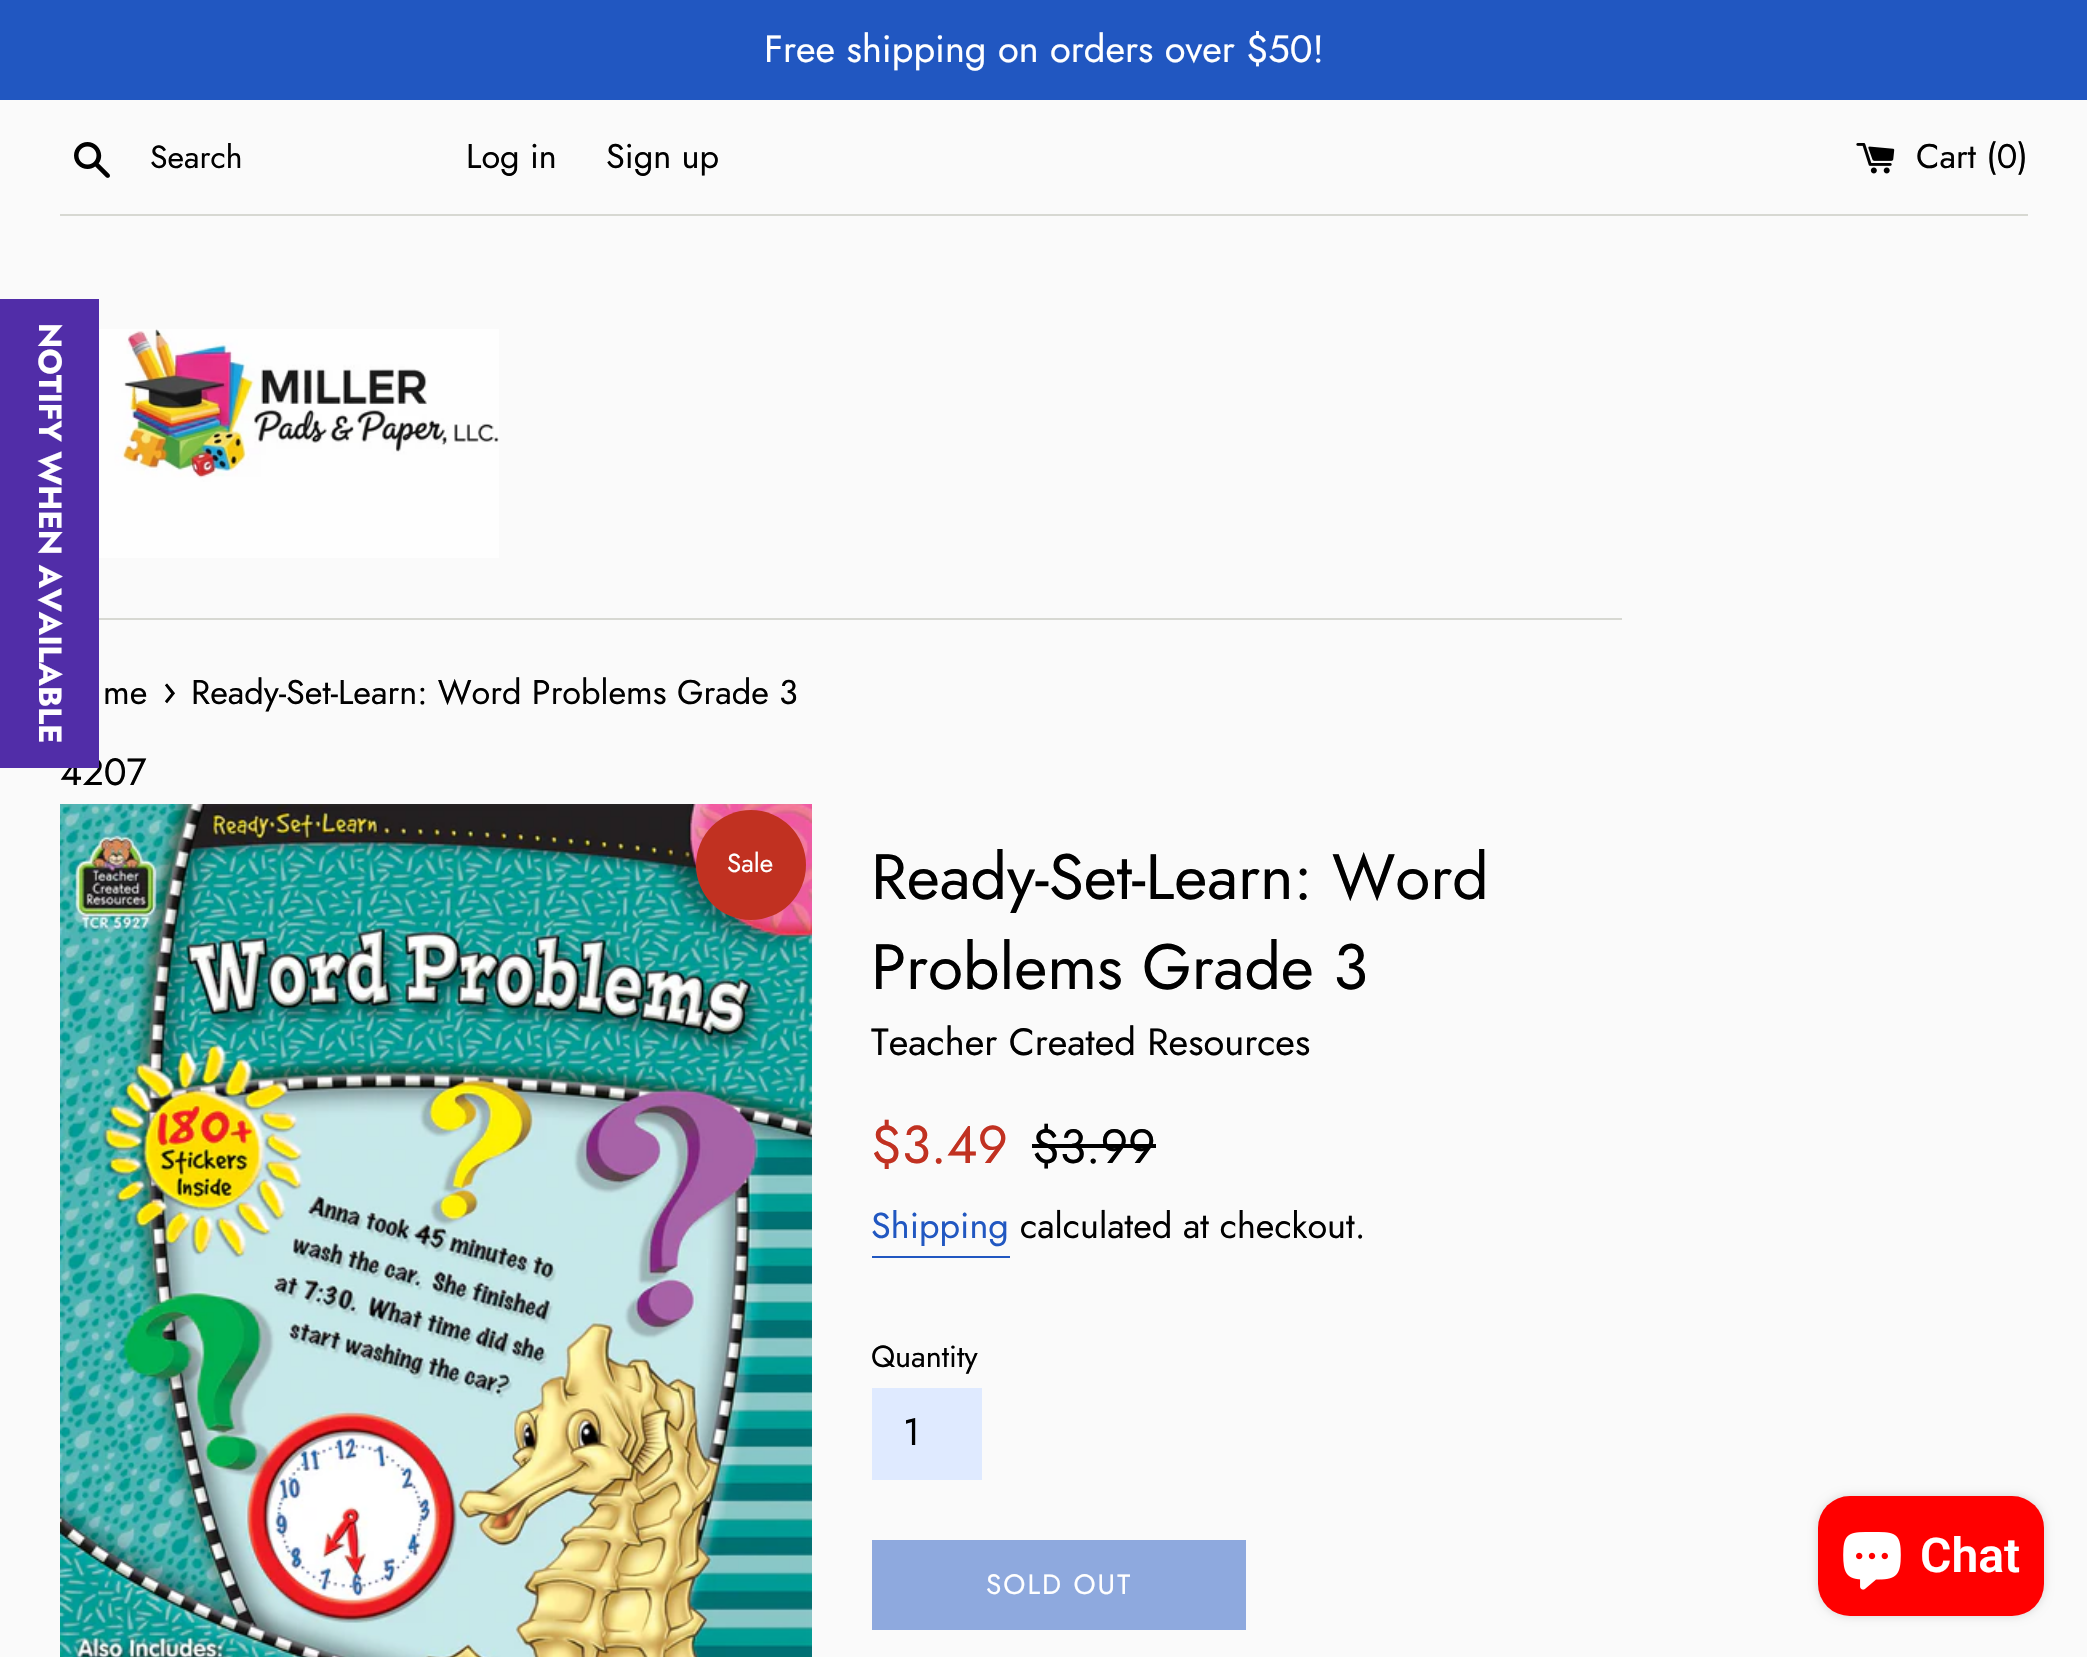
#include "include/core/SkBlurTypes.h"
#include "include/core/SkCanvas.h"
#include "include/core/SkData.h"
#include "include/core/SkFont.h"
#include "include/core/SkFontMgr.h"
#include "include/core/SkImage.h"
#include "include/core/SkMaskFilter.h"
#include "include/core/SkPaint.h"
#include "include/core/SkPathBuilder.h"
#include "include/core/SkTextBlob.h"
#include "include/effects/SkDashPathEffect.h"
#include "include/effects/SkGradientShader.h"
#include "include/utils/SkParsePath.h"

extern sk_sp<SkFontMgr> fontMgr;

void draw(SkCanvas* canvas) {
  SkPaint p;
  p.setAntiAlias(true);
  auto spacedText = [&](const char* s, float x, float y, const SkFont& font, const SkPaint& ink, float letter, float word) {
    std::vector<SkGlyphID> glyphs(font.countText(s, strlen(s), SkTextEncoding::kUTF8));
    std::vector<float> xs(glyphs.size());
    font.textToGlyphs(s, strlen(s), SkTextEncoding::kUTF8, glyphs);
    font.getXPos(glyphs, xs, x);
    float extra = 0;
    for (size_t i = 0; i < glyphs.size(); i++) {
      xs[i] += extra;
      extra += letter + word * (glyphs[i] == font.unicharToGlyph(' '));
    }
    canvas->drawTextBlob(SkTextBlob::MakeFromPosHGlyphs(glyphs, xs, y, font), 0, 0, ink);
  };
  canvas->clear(SkColorSetRGB(250, 250, 250));
  p.setColor(SkColorSetRGB(33, 87, 193));
  canvas->drawRect(SkRect::MakeLTRB(0, 0, 2087, 100), p);
  canvas->drawImageRect(SkImages::DeferredFromEncodedData(SkData::MakeFromFileName("images/1.png")), SkRect::MakeLTRB(74, 142, 110, 178), SkSamplingOptions());
  canvas->drawImageRect(SkImages::DeferredFromEncodedData(SkData::MakeFromFileName("images/2.png")), SkRect::MakeLTRB(1856, 143, 1895, 174), SkSamplingOptions());
  p.setColor(SkColorSetRGB(215, 216, 210));
  canvas->drawRect(SkRect::MakeLTRB(60, 214, 2028, 216), p);
  canvas->drawImageRect(SkImages::DeferredFromEncodedData(SkData::MakeFromFileName("images/3.png")), SkRect::MakeLTRB(99, 329, 499, 558), SkSamplingOptions());
  canvas->drawRect(SkRect::MakeLTRB(99, 618, 1622, 620), p);
  canvas->drawImageRect(SkImages::DeferredFromEncodedData(SkData::MakeFromFileName("images/4.png")), SkRect::MakeLTRB(60, 804, 812, 1657), SkSamplingOptions());
  p.setColor(SkColorSetRGB(193, 49, 33));
  canvas->drawCircle(751, 865, 55, p);
  p.setColor(SK_ColorBLACK);
  canvas->drawRect(SkRect::MakeLTRB(1032, 1144, 1156, 1148), p);
  p.setColor(SkColorSetRGB(33, 87, 193));
  canvas->drawRect(SkRect::MakeLTRB(872, 1256, 1010, 1258), p);
  p.setColor(SkColorSetRGB(223, 234, 255));
  canvas->drawRect(SkRect::MakeLTRB(872, 1388, 982, 1480), p);
  p.setColor(SkColorSetRGB(142, 169, 222));
  canvas->drawRect(SkRect::MakeLTRB(872, 1540, 1246, 1630), p);
  p.setColor(SkColorSetARGB(38, 0, 0, 0));
  p.setMaskFilter(SkMaskFilter::MakeBlur(kNormal_SkBlurStyle, 5));
  canvas->drawRoundRect(SkRect::MakeLTRB(1818, 1496, 2044, 1616), 32, 32, p);
  p.setMaskFilter(nullptr);
  p.setColor(SkColorSetRGB(255, 0, 0));
  canvas->drawRoundRect(SkRect::MakeLTRB(1818, 1496, 2044, 1616), 32, 32, p);
  canvas->drawImageRect(SkImages::DeferredFromEncodedData(SkData::MakeFromFileName("images/5.png")), SkRect::MakeLTRB(1843, 1532, 1901, 1590), SkSamplingOptions());
  SkFont font1(fontMgr->matchFamilyStyle("Jost", SkFontStyle::Normal()), 38);
  font1.setSubpixel(true);
  p.setColor(SK_ColorWHITE);
  canvas->drawString("Free shipping on orders over $50!", 764, 62, font1, p);
  SkFont font2(fontMgr->matchFamilyStyle("Jost", SkFontStyle::Normal()), 32);
  font2.setSubpixel(true);
  p.setColor(SK_ColorBLACK);
  canvas->drawString("Search", 150, 168, font2, p);
  SkFont font3(fontMgr->matchFamilyStyle("Jost", SkFontStyle::Normal()), 34.25f);
  font3.setSubpixel(true);
  canvas->drawString("Log in", 466, 168, font3, p);
  canvas->drawString("Sign up", 606, 168, font3, p);
  canvas->drawString("Cart (0)", 1916, 168, font3, p);
  canvas->drawString("me", 103, 704, font3, p);
  SkFont font4(fontMgr->matchFamilyStyle("Jost", SkFontStyle::Normal()), 42);
  font4.setSubpixel(true);
  canvas->drawString("›", 162, 704, font4, p);
  canvas->drawString("Ready-Set-Learn: Word Problems Grade 3", 191, 704, font3, p);
  canvas->drawString("4207", 60, 785, font1, p);
  p.setColor(SkColorSetRGB(81, 45, 168));
  canvas->drawRect(SkRect::MakeLTRB(0, 299, 99, 768), p);
  SkFont font5(fontMgr->matchFamilyStyle("Jost", SkFontStyle::Bold()), 32);
  font5.setSubpixel(true);
  p.setColor(SK_ColorWHITE);
  canvas->save();
  canvas->rotate(90, 39, 323);
  canvas->drawString("NOTIFY WHEN AVAILABLE", 39, 323, font5, p);
  canvas->restore();
  SkFont font6(fontMgr->matchFamilyStyle("Jost", SkFontStyle::Normal()), 26);
  font6.setSubpixel(true);
  canvas->drawString("Sale", 727, 872, font6, p);
  SkFont font7(fontMgr->matchFamilyStyle("Jost", SkFontStyle::Normal()), 64);
  font7.setSubpixel(true);
  p.setColor(SK_ColorBLACK);
  canvas->drawString("Ready-Set-Learn: Word", 871, 899, font7, p);
  canvas->drawString("Problems Grade 3", 871, 989, font7, p);
  canvas->drawString("Teacher Created Resources", 871, 1055, font1, p);
  SkFont font8(fontMgr->matchFamilyStyle("Jost", SkFontStyle::Normal()), 53);
  font8.setSubpixel(true);
  p.setColor(SkColorSetRGB(193, 49, 33));
  canvas->drawString("$3.49", 871, 1163, font8, p);
  SkFont font9(fontMgr->matchFamilyStyle("Jost", SkFontStyle::Normal()), 48);
  font9.setSubpixel(true);
  p.setColor(SK_ColorBLACK);
  canvas->drawString("$3.99", 1032, 1163, font9, p);
  SkFont font10(fontMgr->matchFamilyStyle("Jost", SkFontStyle::Normal()), 36);
  font10.setSubpixel(true);
  p.setColor(SkColorSetRGB(33, 87, 193));
  canvas->drawString("Shipping", 871, 1238, font10, p);
  p.setColor(SK_ColorBLACK);
  canvas->drawString("calculated at checkout.", 1020, 1238, font10, p);
  SkFont font11(fontMgr->matchFamilyStyle("Jost", SkFontStyle::Normal()), 30.5f);
  font11.setSubpixel(true);
  canvas->drawString("Quantity", 871, 1367, font11, p);
  canvas->drawString("1", 903, 1445, font1, p);
  SkFont font12(fontMgr->matchFamilyStyle("Jost", SkFontStyle::Normal()), 28);
  font12.setSubpixel(true);
  p.setColor(SK_ColorWHITE);
  spacedText("SOLD OUT", 986, 1594, font12, p, 2, 0);
  SkFont font13(fontMgr->matchFamilyStyle("Roboto", SkFontStyle(600, SkFontStyle::kNormal_Width, SkFontStyle::kUpright_Slant)), 48);
  font13.setSubpixel(true);
  canvas->drawString("Chat", 1920, 1572, font13, p);
}
